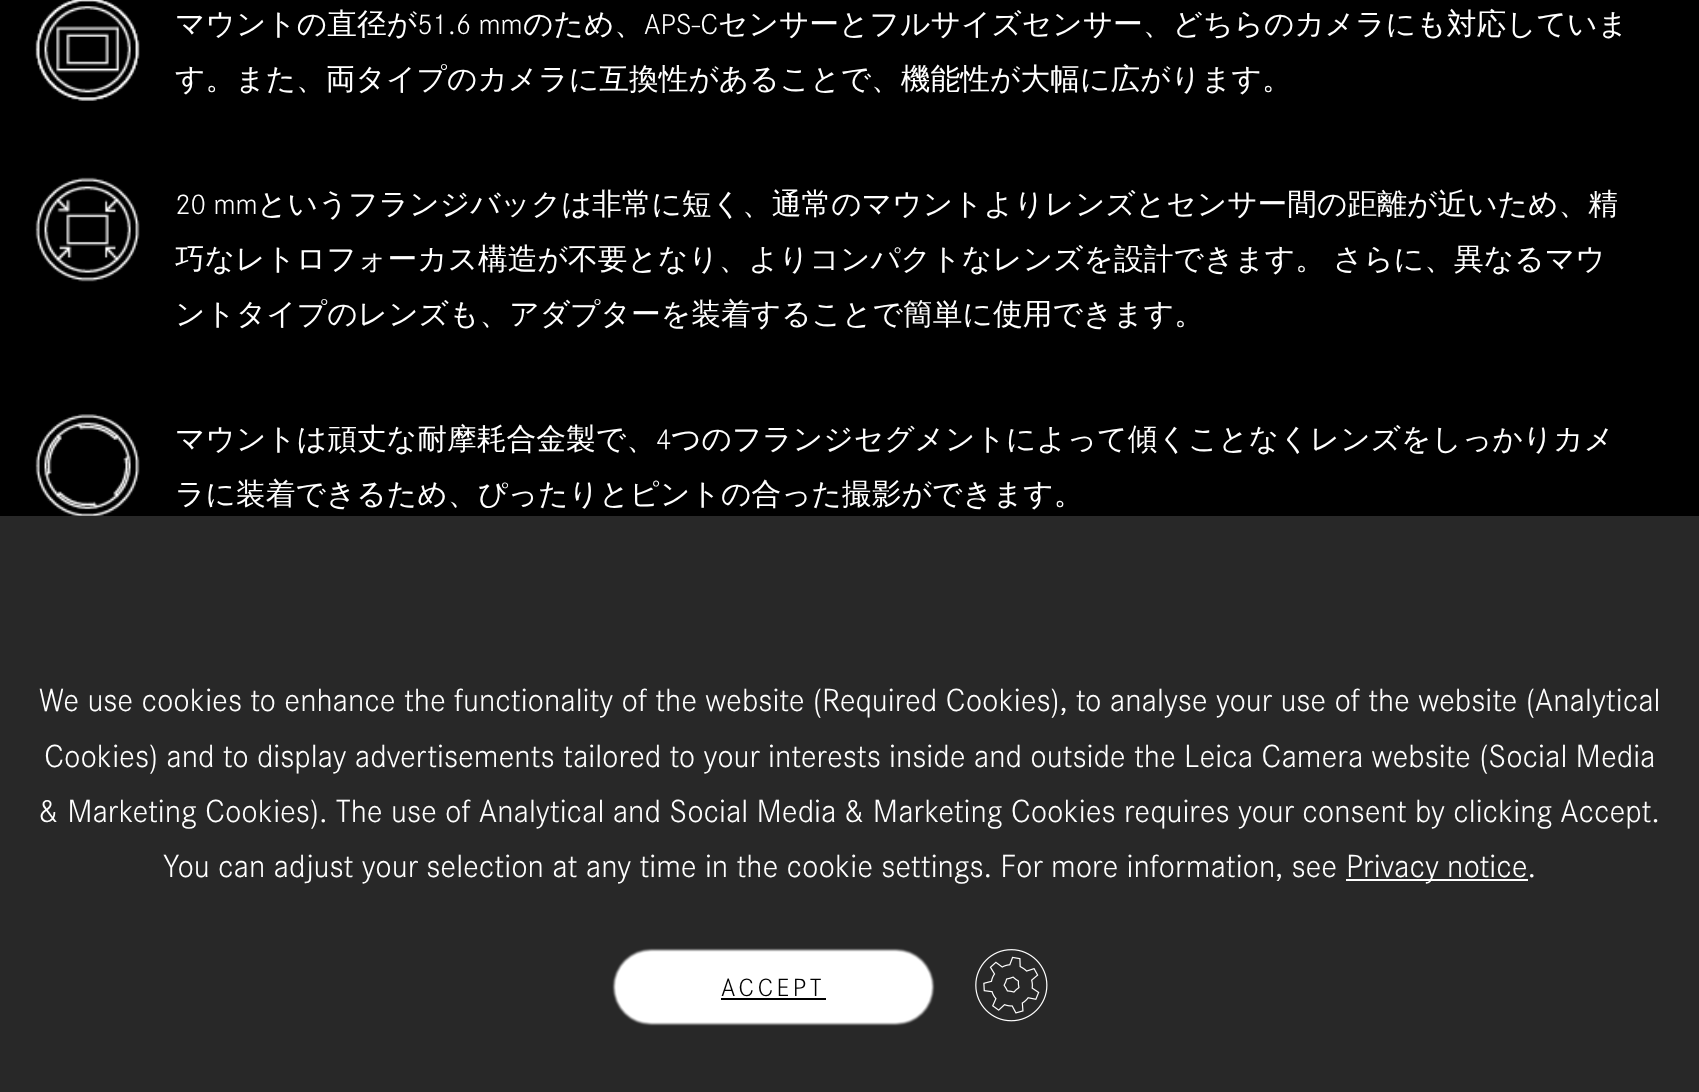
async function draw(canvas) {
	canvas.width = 1699;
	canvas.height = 1092;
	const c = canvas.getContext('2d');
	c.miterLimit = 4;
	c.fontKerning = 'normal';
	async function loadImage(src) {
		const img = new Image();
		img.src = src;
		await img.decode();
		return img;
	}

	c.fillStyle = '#000';
	c.fillRect(0, 0, 1699, 1092);
	c.drawImage(await loadImage('img1.png'), 35, 0, 105, 101);
	c.font = '500 29.75px WenQuanYi Zen Hei';
	c.fillStyle = '#fff';
	c.fillText('マウントの直径が', 175, 34);
	c.font = '300 29.75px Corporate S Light';
	c.fillText('51.6 mm', 417, 34);
	c.font = '500 29.75px WenQuanYi Zen Hei';
	c.fillText('のため、', 523, 34);
	c.font = '300 29.75px Corporate S Light';
	c.fillText('APS-C', 644, 34);
	c.font = '500 29.75px WenQuanYi Zen Hei';
	c.fillText('センサーとフルサイズセンサー、どちらのカメラにも対応していま', 718, 34);
	c.fillText('す。また、両タイプのカメラに互換性があることで、機能性が大幅に広がります。', 175, 89);
	c.drawImage(await loadImage('img2.png'), 35, 177, 105, 105);
	c.font = '300 29.75px Corporate S Light';
	c.fillText('20 mm', 175, 214);
	c.font = '500 29.75px WenQuanYi Zen Hei';
	c.fillText('というフランジバックは非常に短く、通常のマウントよりレンズとセンサー間の距離が近いため、精', 257, 214);
	c.wordSpacing = '-1px';
	c.fillText('巧なレトロフォーカス構造が不要となり、よりコンパクトなレンズを設計できます。 さらに、異なるマウ', 175, 269);
	c.wordSpacing = '0px';
	c.fillText('ントタイプのレンズも、アダプターを装着することで簡単に使用できます。', 175, 324);
	c.drawImage(await loadImage('img3.png'), 35, 414, 105, 102);
	c.fillText('マウントは頑丈な耐摩耗合金製で、', 175, 449);
	c.font = '300 29.75px Corporate S Light';
	c.fillText('4', 656, 449);
	c.font = '500 29.75px WenQuanYi Zen Hei';
	c.fillText('つのフランジセグメントによって傾くことなくレンズをしっかりカメ', 671, 449);
	c.fillText('ラに装着できるため、ぴったりとピントの合った撮影ができます。', 175, 504);
	c.fillStyle = '#282828';
	c.fillRect(0, 516, 1699, 576);
	c.font = '300 33.25px Corporate S Light';
	c.fillStyle = '#fff';
	for (const [text, x, y] of [
		['We use cookies to enhance the functionality of the website (Required Cookies), to analyse your use of the website (Analytical', 39, 711],
		['Cookies) and to display advertisements tailored to your interests inside and outside the Leica Camera website (Social Media', 44, 767],
		['& Marketing Cookies). The use of Analytical and Social Media & Marketing Cookies requires your consent by clicking Accept.', 39, 822],
		['You can adjust your selection at any time in the cookie settings. For more information, see', 163, 877],
	]) {
		c.fillText(text, x, y);
	}
	c.fillRect(1346, 879, 182, 2);
	c.fillText('Privacy notice.', 1346, 877);
	c.filter = 'blur(1px)';
	c.beginPath();
	c.roundRect(614, 950, 319, 74, 37);
	c.fill();
	c.filter = 'none';
	c.beginPath();
	c.roundRect(616, 952, 315, 70, 35);
	c.fill();
	c.letterSpacing = '3.5px';
	c.font = '300 26px Corporate S Light';
	c.fillStyle = '#000';
	c.fillText('ACCEPT', 721, 996);
	c.fillRect(721, 998, 105, 2);
	c.drawImage(await loadImage('img4.png'), 975, 949, 73, 73);
}

draw(document.querySelector('canvas'));
